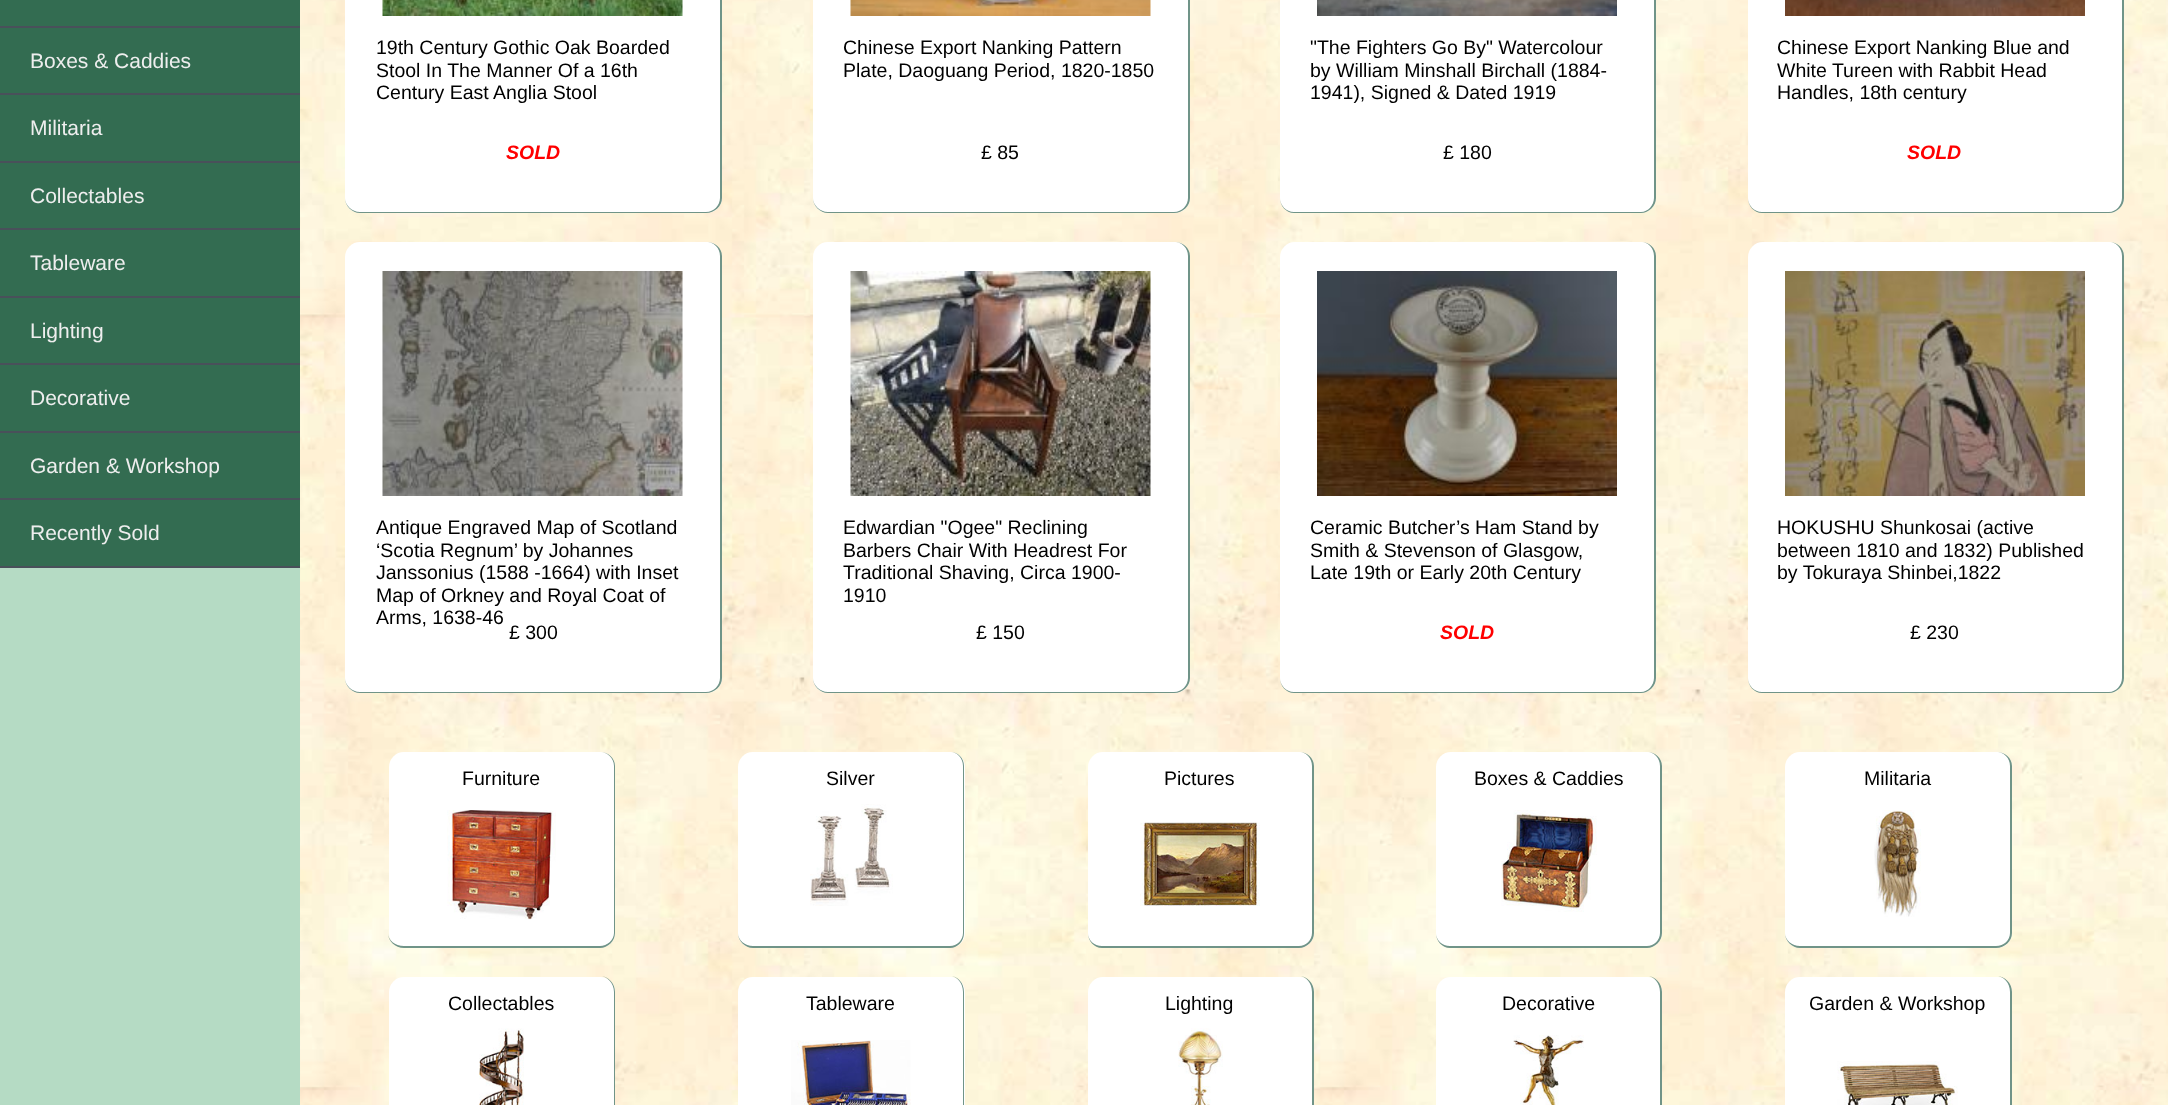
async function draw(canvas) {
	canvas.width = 2168;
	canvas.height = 1105;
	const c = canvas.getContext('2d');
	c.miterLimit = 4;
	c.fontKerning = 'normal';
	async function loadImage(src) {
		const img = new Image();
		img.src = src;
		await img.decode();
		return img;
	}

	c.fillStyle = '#b5dbc4';
	c.fillRect(0, 0, 2168, 1105);
	for (const [x, y, w, h, color] of [
		[0, 0, 300, 26, '#336c51'],
		[0, 28, 300, 65, '#336c51'],
		[0, 26, 300, 2, '#49505a'],
	]) {
		c.fillStyle = color;
		c.fillRect(x, y, w, h);
	}
	c.font = '21px Liberation Sans';
	c.fillStyle = '#eee';
	c.fillText('Boxes & Caddies', 30, 68);
	c.fillStyle = '#336c51';
	c.fillRect(0, 95, 300, 66);
	c.fillStyle = '#49505a';
	c.fillRect(0, 93, 300, 2);
	c.fillStyle = '#eee';
	c.fillText('Militaria', 30, 135);
	c.fillStyle = '#336c51';
	c.fillRect(0, 163, 300, 65);
	c.fillStyle = '#49505a';
	c.fillRect(0, 161, 300, 2);
	c.fillStyle = '#eee';
	c.fillText('Collectables', 30, 203);
	c.fillStyle = '#336c51';
	c.fillRect(0, 230, 300, 66);
	c.fillStyle = '#49505a';
	c.fillRect(0, 228, 300, 2);
	c.fillStyle = '#eee';
	c.fillText('Tableware', 30, 270);
	c.fillStyle = '#336c51';
	c.fillRect(0, 298, 300, 65);
	c.fillStyle = '#49505a';
	c.fillRect(0, 296, 300, 2);
	c.fillStyle = '#eee';
	c.fillText('Lighting', 30, 338);
	c.fillStyle = '#336c51';
	c.fillRect(0, 365, 300, 66);
	c.fillStyle = '#49505a';
	c.fillRect(0, 363, 300, 2);
	c.fillStyle = '#eee';
	c.fillText('Decorative', 30, 405);
	c.fillStyle = '#336c51';
	c.fillRect(0, 433, 300, 65);
	c.fillStyle = '#49505a';
	c.fillRect(0, 431, 300, 2);
	c.fillStyle = '#eee';
	c.fillText('Garden & Workshop', 30, 473);
	for (const [x, y, w, h, color] of [
		[0, 500, 300, 66, '#336c51'],
		[0, 498, 300, 2, '#49505a'],
		[0, 566, 300, 2, '#49505a'],
	]) {
		c.fillStyle = color;
		c.fillRect(x, y, w, h);
	}
	c.fillStyle = '#eee';
	c.fillText('Recently Sold', 30, 540);
	c.drawImage(await loadImage('img1.png'), 300, 0, 1868, 1105);
	c.fillStyle = '#fff';
	c.beginPath();
	c.roundRect(345, -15, 377, 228, 15);
	c.fill();
	c.fillStyle = '#709488';
	c.beginPath();
	c.moveTo(360, -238);
	c.lineTo(706, -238);
	c.bezierCurveTo(715, -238, 722, -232, 722, -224);
	c.lineTo(722, 198);
	c.bezierCurveTo(722, 206, 715, 213, 706, 213);
	c.lineTo(360, 213);
	c.bezierCurveTo(352, 213, 345, 206, 345, 198);
	c.lineTo(345, -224);
	c.bezierCurveTo(345, -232, 352, -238, 360, -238);
	c.closePath();
	c.moveTo(360, -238);
	c.lineTo(706, -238);
	c.bezierCurveTo(714, -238, 720, -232, 720, -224);
	c.lineTo(720, 198);
	c.bezierCurveTo(720, 205, 714, 212, 706, 212);
	c.lineTo(360, 212);
	c.bezierCurveTo(352, 212, 345, 205, 345, 198);
	c.lineTo(345, -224);
	c.bezierCurveTo(345, -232, 352, -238, 360, -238);
	c.closePath();
	c.fill('evenodd');
	c.drawImage(await loadImage('img2.png'), 382, 0, 301, 16);
	c.font = '19.5px Liberation Sans';
	c.fillStyle = '#000';
	for (const [text, x, y] of [
		['19th Century Gothic Oak Boarded', 376, 54],
		['Stool In The Manner Of a 16th', 376, 77],
		['Century East Anglia Stool', 376, 99],
	]) {
		c.fillText(text, x, y);
	}
	c.font = 'italic bold 19.5px Liberation Sans';
	c.fillStyle = '#f00';
	c.fillText('SOLD', 506, 159);
	c.fillStyle = '#fff';
	c.beginPath();
	c.roundRect(813, -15, 377, 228, 15);
	c.fill();
	c.fillStyle = '#709488';
	c.beginPath();
	c.moveTo(828, -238);
	c.lineTo(1174, -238);
	c.bezierCurveTo(1183, -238, 1190, -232, 1190, -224);
	c.lineTo(1190, 198);
	c.bezierCurveTo(1190, 206, 1183, 213, 1174, 213);
	c.lineTo(828, 213);
	c.bezierCurveTo(820, 213, 813, 206, 813, 198);
	c.lineTo(813, -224);
	c.bezierCurveTo(813, -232, 820, -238, 828, -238);
	c.closePath();
	c.moveTo(828, -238);
	c.lineTo(1174, -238);
	c.bezierCurveTo(1182, -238, 1188, -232, 1188, -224);
	c.lineTo(1188, 198);
	c.bezierCurveTo(1188, 205, 1182, 212, 1174, 212);
	c.lineTo(828, 212);
	c.bezierCurveTo(820, 212, 813, 205, 813, 198);
	c.lineTo(813, -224);
	c.bezierCurveTo(813, -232, 820, -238, 828, -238);
	c.closePath();
	c.fill('evenodd');
	c.drawImage(await loadImage('img3.png'), 850, 0, 301, 16);
	c.font = '19.5px Liberation Sans';
	c.fillStyle = '#000';
	for (const [text, x, y] of [
		['Chinese Export Nanking Pattern', 843, 54],
		['Plate, Daoguang Period, 1820-1850', 843, 77],
		['£ 85', 981, 159],
	]) {
		c.fillText(text, x, y);
	}
	c.fillStyle = '#fff';
	c.beginPath();
	c.roundRect(1280, -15, 376, 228, 15);
	c.fill();
	c.fillStyle = '#709488';
	c.beginPath();
	c.moveTo(1294, -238);
	c.lineTo(1641, -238);
	c.bezierCurveTo(1649, -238, 1656, -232, 1656, -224);
	c.lineTo(1656, 198);
	c.bezierCurveTo(1656, 206, 1649, 213, 1641, 213);
	c.lineTo(1294, 213);
	c.bezierCurveTo(1286, 213, 1280, 206, 1280, 198);
	c.lineTo(1280, -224);
	c.bezierCurveTo(1280, -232, 1286, -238, 1294, -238);
	c.closePath();
	c.moveTo(1294, -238);
	c.lineTo(1641, -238);
	c.bezierCurveTo(1648, -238, 1654, -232, 1654, -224);
	c.lineTo(1654, 198);
	c.bezierCurveTo(1654, 205, 1648, 212, 1641, 212);
	c.lineTo(1294, 212);
	c.bezierCurveTo(1286, 212, 1280, 205, 1280, 198);
	c.lineTo(1280, -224);
	c.bezierCurveTo(1280, -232, 1286, -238, 1294, -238);
	c.closePath();
	c.fill('evenodd');
	c.drawImage(await loadImage('img4.png'), 1317, 0, 300, 16);
	c.fillStyle = '#000';
	for (const [text, x, y] of [
		['"The Fighters Go By" Watercolour', 1310, 54],
		['by William Minshall Birchall (1884-', 1310, 77],
		['1941), Signed & Dated 1919', 1310, 99],
		['£ 180', 1443, 159],
	]) {
		c.fillText(text, x, y);
	}
	c.fillStyle = '#fff';
	c.beginPath();
	c.roundRect(1748, -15, 376, 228, 15);
	c.fill();
	c.fillStyle = '#709488';
	c.beginPath();
	c.moveTo(1762, -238);
	c.lineTo(2109, -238);
	c.bezierCurveTo(2117, -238, 2124, -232, 2124, -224);
	c.lineTo(2124, 198);
	c.bezierCurveTo(2124, 206, 2117, 213, 2109, 213);
	c.lineTo(1762, 213);
	c.bezierCurveTo(1754, 213, 1748, 206, 1748, 198);
	c.lineTo(1748, -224);
	c.bezierCurveTo(1748, -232, 1754, -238, 1762, -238);
	c.closePath();
	c.moveTo(1762, -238);
	c.lineTo(2109, -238);
	c.bezierCurveTo(2116, -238, 2122, -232, 2122, -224);
	c.lineTo(2122, 198);
	c.bezierCurveTo(2122, 205, 2116, 212, 2109, 212);
	c.lineTo(1762, 212);
	c.bezierCurveTo(1754, 212, 1748, 205, 1748, 198);
	c.lineTo(1748, -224);
	c.bezierCurveTo(1748, -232, 1754, -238, 1762, -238);
	c.closePath();
	c.fill('evenodd');
	c.drawImage(await loadImage('img5.png'), 1785, 0, 300, 16);
	c.fillStyle = '#000';
	for (const [text, x, y] of [
		['Chinese Export Nanking Blue and', 1777, 54],
		['White Tureen with Rabbit Head', 1777, 77],
		['Handles, 18th century', 1777, 99],
	]) {
		c.fillText(text, x, y);
	}
	c.font = 'italic bold 19.5px Liberation Sans';
	c.fillStyle = '#f00';
	c.fillText('SOLD', 1907, 159);
	c.fillStyle = '#fff';
	c.beginPath();
	c.roundRect(345, 242, 377, 451, 15);
	c.fill();
	c.fillStyle = '#709488';
	c.beginPath();
	c.moveTo(360, 242);
	c.lineTo(706, 242);
	c.bezierCurveTo(715, 242, 722, 248, 722, 256);
	c.lineTo(722, 678);
	c.bezierCurveTo(722, 686, 715, 693, 706, 693);
	c.lineTo(360, 693);
	c.bezierCurveTo(352, 693, 345, 686, 345, 678);
	c.lineTo(345, 256);
	c.bezierCurveTo(345, 248, 352, 242, 360, 242);
	c.closePath();
	c.moveTo(360, 242);
	c.lineTo(706, 242);
	c.bezierCurveTo(714, 242, 720, 248, 720, 256);
	c.lineTo(720, 678);
	c.bezierCurveTo(720, 685, 714, 692, 706, 692);
	c.lineTo(360, 692);
	c.bezierCurveTo(352, 692, 345, 685, 345, 678);
	c.lineTo(345, 256);
	c.bezierCurveTo(345, 248, 352, 242, 360, 242);
	c.closePath();
	c.fill('evenodd');
	c.drawImage(await loadImage('img6.png'), 382, 271, 301, 225);
	c.font = '19.5px Liberation Sans';
	c.fillStyle = '#000';
	for (const [text, x, y] of [
		['Antique Engraved Map of Scotland', 376, 534],
		['‘Scotia Regnum’ by Johannes', 376, 557],
		['Janssonius (1588 -1664) with Inset', 376, 579],
		['Map of Orkney and Royal Coat of', 376, 602],
		['Arms, 1638-46', 376, 624],
		['£ 300', 509, 639],
	]) {
		c.fillText(text, x, y);
	}
	c.fillStyle = '#fff';
	c.beginPath();
	c.roundRect(813, 242, 377, 451, 15);
	c.fill();
	c.fillStyle = '#709488';
	c.beginPath();
	c.moveTo(828, 242);
	c.lineTo(1174, 242);
	c.bezierCurveTo(1183, 242, 1190, 248, 1190, 256);
	c.lineTo(1190, 678);
	c.bezierCurveTo(1190, 686, 1183, 693, 1174, 693);
	c.lineTo(828, 693);
	c.bezierCurveTo(820, 693, 813, 686, 813, 678);
	c.lineTo(813, 256);
	c.bezierCurveTo(813, 248, 820, 242, 828, 242);
	c.closePath();
	c.moveTo(828, 242);
	c.lineTo(1174, 242);
	c.bezierCurveTo(1182, 242, 1188, 248, 1188, 256);
	c.lineTo(1188, 678);
	c.bezierCurveTo(1188, 685, 1182, 692, 1174, 692);
	c.lineTo(828, 692);
	c.bezierCurveTo(820, 692, 813, 685, 813, 678);
	c.lineTo(813, 256);
	c.bezierCurveTo(813, 248, 820, 242, 828, 242);
	c.closePath();
	c.fill('evenodd');
	c.drawImage(await loadImage('img7.png'), 850, 271, 301, 225);
	c.fillStyle = '#000';
	for (const [text, x, y] of [
		['Edwardian "Ogee" Reclining', 843, 534],
		['Barbers Chair With Headrest For', 843, 557],
		['Traditional Shaving, Circa 1900-', 843, 579],
		['1910', 843, 602],
		['£ 150', 976, 639],
	]) {
		c.fillText(text, x, y);
	}
	c.fillStyle = '#fff';
	c.beginPath();
	c.roundRect(1280, 242, 376, 451, 15);
	c.fill();
	c.fillStyle = '#709488';
	c.beginPath();
	c.moveTo(1294, 242);
	c.lineTo(1641, 242);
	c.bezierCurveTo(1649, 242, 1656, 248, 1656, 256);
	c.lineTo(1656, 678);
	c.bezierCurveTo(1656, 686, 1649, 693, 1641, 693);
	c.lineTo(1294, 693);
	c.bezierCurveTo(1286, 693, 1280, 686, 1280, 678);
	c.lineTo(1280, 256);
	c.bezierCurveTo(1280, 248, 1286, 242, 1294, 242);
	c.closePath();
	c.moveTo(1294, 242);
	c.lineTo(1641, 242);
	c.bezierCurveTo(1648, 242, 1654, 248, 1654, 256);
	c.lineTo(1654, 678);
	c.bezierCurveTo(1654, 685, 1648, 692, 1641, 692);
	c.lineTo(1294, 692);
	c.bezierCurveTo(1286, 692, 1280, 685, 1280, 678);
	c.lineTo(1280, 256);
	c.bezierCurveTo(1280, 248, 1286, 242, 1294, 242);
	c.closePath();
	c.fill('evenodd');
	c.drawImage(await loadImage('img8.png'), 1317, 271, 300, 225);
	c.fillStyle = '#000';
	for (const [text, x, y] of [
		['Ceramic Butcher’s Ham Stand by', 1310, 534],
		['Smith & Stevenson of Glasgow,', 1310, 557],
		['Late 19th or Early 20th Century', 1310, 579],
	]) {
		c.fillText(text, x, y);
	}
	c.font = 'italic bold 19.5px Liberation Sans';
	c.fillStyle = '#f00';
	c.fillText('SOLD', 1440, 639);
	c.fillStyle = '#fff';
	c.beginPath();
	c.roundRect(1748, 242, 376, 451, 15);
	c.fill();
	c.fillStyle = '#709488';
	c.beginPath();
	c.moveTo(1762, 242);
	c.lineTo(2109, 242);
	c.bezierCurveTo(2117, 242, 2124, 248, 2124, 256);
	c.lineTo(2124, 678);
	c.bezierCurveTo(2124, 686, 2117, 693, 2109, 693);
	c.lineTo(1762, 693);
	c.bezierCurveTo(1754, 693, 1748, 686, 1748, 678);
	c.lineTo(1748, 256);
	c.bezierCurveTo(1748, 248, 1754, 242, 1762, 242);
	c.closePath();
	c.moveTo(1762, 242);
	c.lineTo(2109, 242);
	c.bezierCurveTo(2116, 242, 2122, 248, 2122, 256);
	c.lineTo(2122, 678);
	c.bezierCurveTo(2122, 685, 2116, 692, 2109, 692);
	c.lineTo(1762, 692);
	c.bezierCurveTo(1754, 692, 1748, 685, 1748, 678);
	c.lineTo(1748, 256);
	c.bezierCurveTo(1748, 248, 1754, 242, 1762, 242);
	c.closePath();
	c.fill('evenodd');
	c.drawImage(await loadImage('img9.png'), 1785, 271, 300, 225);
	c.font = '19.5px Liberation Sans';
	c.fillStyle = '#000';
	for (const [text, x, y] of [
		['HOKUSHU Shunkosai (active', 1777, 534],
		['between 1810 and 1832) Published', 1777, 557],
		['by Tokuraya Shinbei,1822', 1777, 579],
		['£ 230', 1910, 639],
	]) {
		c.fillText(text, x, y);
	}
	c.fillStyle = '#fff';
	c.beginPath();
	c.roundRect(389, 752, 226, 196, 15);
	c.fill();
	c.fillStyle = '#709488';
	c.beginPath();
	c.moveTo(404, 752);
	c.lineTo(600, 752);
	c.bezierCurveTo(608, 752, 615, 758, 615, 766);
	c.lineTo(615, 933);
	c.bezierCurveTo(615, 941, 608, 948, 600, 948);
	c.lineTo(404, 948);
	c.bezierCurveTo(395, 948, 388, 941, 388, 933);
	c.lineTo(388, 766);
	c.bezierCurveTo(388, 758, 395, 752, 404, 752);
	c.closePath();
	c.moveTo(404, 752);
	c.lineTo(600, 752);
	c.bezierCurveTo(607, 752, 614, 758, 614, 766);
	c.lineTo(614, 933);
	c.bezierCurveTo(614, 940, 607, 946, 600, 946);
	c.lineTo(404, 946);
	c.bezierCurveTo(395, 946, 388, 940, 388, 933);
	c.lineTo(388, 766);
	c.bezierCurveTo(388, 758, 395, 752, 404, 752);
	c.closePath();
	c.fill('evenodd');
	c.fillStyle = '#000';
	c.fillText('Furniture', 462, 785);
	c.drawImage(await loadImage('img10.png'), 447, 810, 109, 110);
	c.fillStyle = '#fff';
	c.beginPath();
	c.roundRect(738, 752, 227, 196, 15);
	c.fill();
	c.fillStyle = '#709488';
	c.beginPath();
	c.moveTo(753, 752);
	c.lineTo(950, 752);
	c.bezierCurveTo(958, 752, 964, 758, 964, 766);
	c.lineTo(964, 933);
	c.bezierCurveTo(964, 941, 958, 948, 950, 948);
	c.lineTo(753, 948);
	c.bezierCurveTo(745, 948, 738, 941, 738, 933);
	c.lineTo(738, 766);
	c.bezierCurveTo(738, 758, 745, 752, 753, 752);
	c.closePath();
	c.moveTo(753, 752);
	c.lineTo(950, 752);
	c.bezierCurveTo(957, 752, 963, 758, 963, 766);
	c.lineTo(963, 933);
	c.bezierCurveTo(963, 940, 957, 946, 950, 946);
	c.lineTo(753, 946);
	c.bezierCurveTo(745, 946, 738, 940, 738, 933);
	c.lineTo(738, 766);
	c.bezierCurveTo(738, 758, 745, 752, 753, 752);
	c.closePath();
	c.fill('evenodd');
	c.fillStyle = '#000';
	c.fillText('Silver', 826, 785);
	c.drawImage(await loadImage('img11.png'), 810, 804, 83, 102);
	c.fillStyle = '#fff';
	c.beginPath();
	c.roundRect(1088, 752, 226, 196, 15);
	c.fill();
	c.fillStyle = '#709488';
	c.beginPath();
	c.moveTo(1102, 752);
	c.lineTo(1299, 752);
	c.bezierCurveTo(1307, 752, 1314, 758, 1314, 766);
	c.lineTo(1314, 933);
	c.bezierCurveTo(1314, 941, 1307, 948, 1299, 948);
	c.lineTo(1102, 948);
	c.bezierCurveTo(1094, 948, 1088, 941, 1088, 933);
	c.lineTo(1088, 766);
	c.bezierCurveTo(1088, 758, 1094, 752, 1102, 752);
	c.closePath();
	c.moveTo(1102, 752);
	c.lineTo(1299, 752);
	c.bezierCurveTo(1306, 752, 1312, 758, 1312, 766);
	c.lineTo(1312, 933);
	c.bezierCurveTo(1312, 940, 1306, 946, 1299, 946);
	c.lineTo(1102, 946);
	c.bezierCurveTo(1094, 946, 1088, 940, 1088, 933);
	c.lineTo(1088, 766);
	c.bezierCurveTo(1088, 758, 1094, 752, 1102, 752);
	c.closePath();
	c.fill('evenodd');
	c.fillStyle = '#000';
	c.fillText('Pictures', 1164, 785);
	c.drawImage(await loadImage('img12.png'), 1140, 822, 120, 84);
	c.fillStyle = '#fff';
	c.beginPath();
	c.roundRect(1436, 752, 226, 196, 15);
	c.fill();
	c.fillStyle = '#709488';
	c.beginPath();
	c.moveTo(1450, 752);
	c.lineTo(1647, 752);
	c.bezierCurveTo(1655, 752, 1662, 758, 1662, 766);
	c.lineTo(1662, 933);
	c.bezierCurveTo(1662, 941, 1655, 948, 1647, 948);
	c.lineTo(1450, 948);
	c.bezierCurveTo(1442, 948, 1436, 941, 1436, 933);
	c.lineTo(1436, 766);
	c.bezierCurveTo(1436, 758, 1442, 752, 1450, 752);
	c.closePath();
	c.moveTo(1450, 752);
	c.lineTo(1647, 752);
	c.bezierCurveTo(1654, 752, 1660, 758, 1660, 766);
	c.lineTo(1660, 933);
	c.bezierCurveTo(1660, 940, 1654, 946, 1647, 946);
	c.lineTo(1450, 946);
	c.bezierCurveTo(1442, 946, 1436, 940, 1436, 933);
	c.lineTo(1436, 766);
	c.bezierCurveTo(1436, 758, 1442, 752, 1450, 752);
	c.closePath();
	c.fill('evenodd');
	c.fillStyle = '#000';
	c.fillText('Boxes & Caddies', 1474, 785);
	c.drawImage(await loadImage('img13.png'), 1501, 810, 96, 102);
	c.fillStyle = '#fff';
	c.beginPath();
	c.roundRect(1785, 752, 227, 196, 15);
	c.fill();
	c.fillStyle = '#709488';
	c.beginPath();
	c.moveTo(1800, 752);
	c.lineTo(1996, 752);
	c.bezierCurveTo(2005, 752, 2012, 758, 2012, 766);
	c.lineTo(2012, 933);
	c.bezierCurveTo(2012, 941, 2005, 948, 1996, 948);
	c.lineTo(1800, 948);
	c.bezierCurveTo(1792, 948, 1785, 941, 1785, 933);
	c.lineTo(1785, 766);
	c.bezierCurveTo(1785, 758, 1792, 752, 1800, 752);
	c.closePath();
	c.moveTo(1800, 752);
	c.lineTo(1996, 752);
	c.bezierCurveTo(2004, 752, 2010, 758, 2010, 766);
	c.lineTo(2010, 933);
	c.bezierCurveTo(2010, 940, 2004, 946, 1996, 946);
	c.lineTo(1800, 946);
	c.bezierCurveTo(1792, 946, 1785, 940, 1785, 933);
	c.lineTo(1785, 766);
	c.bezierCurveTo(1785, 758, 1792, 752, 1800, 752);
	c.closePath();
	c.fill('evenodd');
	c.fillStyle = '#000';
	c.fillText('Militaria', 1864, 785);
	c.drawImage(await loadImage('img14.png'), 1874, 810, 47, 107);
	c.fillStyle = '#fff';
	c.beginPath();
	c.roundRect(389, 977, 226, 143, 15);
	c.fill();
	c.fillStyle = '#709488';
	c.beginPath();
	c.moveTo(404, 976);
	c.lineTo(600, 976);
	c.bezierCurveTo(608, 976, 615, 983, 615, 992);
	c.lineTo(615, 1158);
	c.bezierCurveTo(615, 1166, 608, 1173, 600, 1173);
	c.lineTo(404, 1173);
	c.bezierCurveTo(395, 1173, 388, 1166, 388, 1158);
	c.lineTo(388, 992);
	c.bezierCurveTo(388, 983, 395, 976, 404, 976);
	c.closePath();
	c.moveTo(404, 976);
	c.lineTo(600, 976);
	c.bezierCurveTo(607, 976, 614, 983, 614, 992);
	c.lineTo(614, 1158);
	c.bezierCurveTo(614, 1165, 607, 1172, 600, 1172);
	c.lineTo(404, 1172);
	c.bezierCurveTo(395, 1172, 388, 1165, 388, 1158);
	c.lineTo(388, 992);
	c.bezierCurveTo(388, 983, 395, 976, 404, 976);
	c.closePath();
	c.fill('evenodd');
	c.fillStyle = '#000';
	c.fillText('Collectables', 448, 1010);
	c.drawImage(await loadImage('img15.png'), 479, 1028, 45, 77);
	c.fillStyle = '#fff';
	c.beginPath();
	c.roundRect(738, 977, 227, 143, 15);
	c.fill();
	c.fillStyle = '#709488';
	c.beginPath();
	c.moveTo(753, 976);
	c.lineTo(950, 976);
	c.bezierCurveTo(958, 976, 964, 983, 964, 992);
	c.lineTo(964, 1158);
	c.bezierCurveTo(964, 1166, 958, 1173, 950, 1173);
	c.lineTo(753, 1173);
	c.bezierCurveTo(745, 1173, 738, 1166, 738, 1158);
	c.lineTo(738, 992);
	c.bezierCurveTo(738, 983, 745, 976, 753, 976);
	c.closePath();
	c.moveTo(753, 976);
	c.lineTo(950, 976);
	c.bezierCurveTo(957, 976, 963, 983, 963, 992);
	c.lineTo(963, 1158);
	c.bezierCurveTo(963, 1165, 957, 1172, 950, 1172);
	c.lineTo(753, 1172);
	c.bezierCurveTo(745, 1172, 738, 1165, 738, 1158);
	c.lineTo(738, 992);
	c.bezierCurveTo(738, 983, 745, 976, 753, 976);
	c.closePath();
	c.fill('evenodd');
	c.fillStyle = '#000';
	c.fillText('Tableware', 806, 1010);
	c.drawImage(await loadImage('img16.png'), 791, 1040, 120, 65);
	c.fillStyle = '#fff';
	c.beginPath();
	c.roundRect(1088, 977, 226, 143, 15);
	c.fill();
	c.fillStyle = '#709488';
	c.beginPath();
	c.moveTo(1102, 976);
	c.lineTo(1299, 976);
	c.bezierCurveTo(1307, 976, 1314, 983, 1314, 992);
	c.lineTo(1314, 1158);
	c.bezierCurveTo(1314, 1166, 1307, 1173, 1299, 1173);
	c.lineTo(1102, 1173);
	c.bezierCurveTo(1094, 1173, 1088, 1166, 1088, 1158);
	c.lineTo(1088, 992);
	c.bezierCurveTo(1088, 983, 1094, 976, 1102, 976);
	c.closePath();
	c.moveTo(1102, 976);
	c.lineTo(1299, 976);
	c.bezierCurveTo(1306, 976, 1312, 983, 1312, 992);
	c.lineTo(1312, 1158);
	c.bezierCurveTo(1312, 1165, 1306, 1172, 1299, 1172);
	c.lineTo(1102, 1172);
	c.bezierCurveTo(1094, 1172, 1088, 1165, 1088, 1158);
	c.lineTo(1088, 992);
	c.bezierCurveTo(1088, 983, 1094, 976, 1102, 976);
	c.closePath();
	c.fill('evenodd');
	c.fillStyle = '#000';
	c.fillText('Lighting', 1165, 1010);
	c.drawImage(await loadImage('img17.png'), 1178, 1028, 45, 77);
	c.fillStyle = '#fff';
	c.beginPath();
	c.roundRect(1436, 977, 226, 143, 15);
	c.fill();
	c.fillStyle = '#709488';
	c.beginPath();
	c.moveTo(1450, 976);
	c.lineTo(1647, 976);
	c.bezierCurveTo(1655, 976, 1662, 983, 1662, 992);
	c.lineTo(1662, 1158);
	c.bezierCurveTo(1662, 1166, 1655, 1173, 1647, 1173);
	c.lineTo(1450, 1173);
	c.bezierCurveTo(1442, 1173, 1436, 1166, 1436, 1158);
	c.lineTo(1436, 992);
	c.bezierCurveTo(1436, 983, 1442, 976, 1450, 976);
	c.closePath();
	c.moveTo(1450, 976);
	c.lineTo(1647, 976);
	c.bezierCurveTo(1654, 976, 1660, 983, 1660, 992);
	c.lineTo(1660, 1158);
	c.bezierCurveTo(1660, 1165, 1654, 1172, 1647, 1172);
	c.lineTo(1450, 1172);
	c.bezierCurveTo(1442, 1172, 1436, 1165, 1436, 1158);
	c.lineTo(1436, 992);
	c.bezierCurveTo(1436, 983, 1442, 976, 1450, 976);
	c.closePath();
	c.fill('evenodd');
	c.fillStyle = '#000';
	c.fillText('Decorative', 1502, 1010);
	c.drawImage(await loadImage('img18.png'), 1513, 1035, 71, 70);
	c.fillStyle = '#fff';
	c.beginPath();
	c.roundRect(1785, 977, 227, 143, 15);
	c.fill();
	c.fillStyle = '#709488';
	c.beginPath();
	c.moveTo(1800, 976);
	c.lineTo(1996, 976);
	c.bezierCurveTo(2005, 976, 2012, 983, 2012, 992);
	c.lineTo(2012, 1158);
	c.bezierCurveTo(2012, 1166, 2005, 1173, 1996, 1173);
	c.lineTo(1800, 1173);
	c.bezierCurveTo(1792, 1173, 1785, 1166, 1785, 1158);
	c.lineTo(1785, 992);
	c.bezierCurveTo(1785, 983, 1792, 976, 1800, 976);
	c.closePath();
	c.moveTo(1800, 976);
	c.lineTo(1996, 976);
	c.bezierCurveTo(2004, 976, 2010, 983, 2010, 992);
	c.lineTo(2010, 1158);
	c.bezierCurveTo(2010, 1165, 2004, 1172, 1996, 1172);
	c.lineTo(1800, 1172);
	c.bezierCurveTo(1792, 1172, 1785, 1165, 1785, 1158);
	c.lineTo(1785, 992);
	c.bezierCurveTo(1785, 983, 1792, 976, 1800, 976);
	c.closePath();
	c.fill('evenodd');
	c.fillStyle = '#000';
	c.fillText('Garden & Workshop', 1809, 1010);
	c.drawImage(await loadImage('img19.png'), 1837, 1061, 121, 44);
}

draw(document.querySelector('canvas'));
